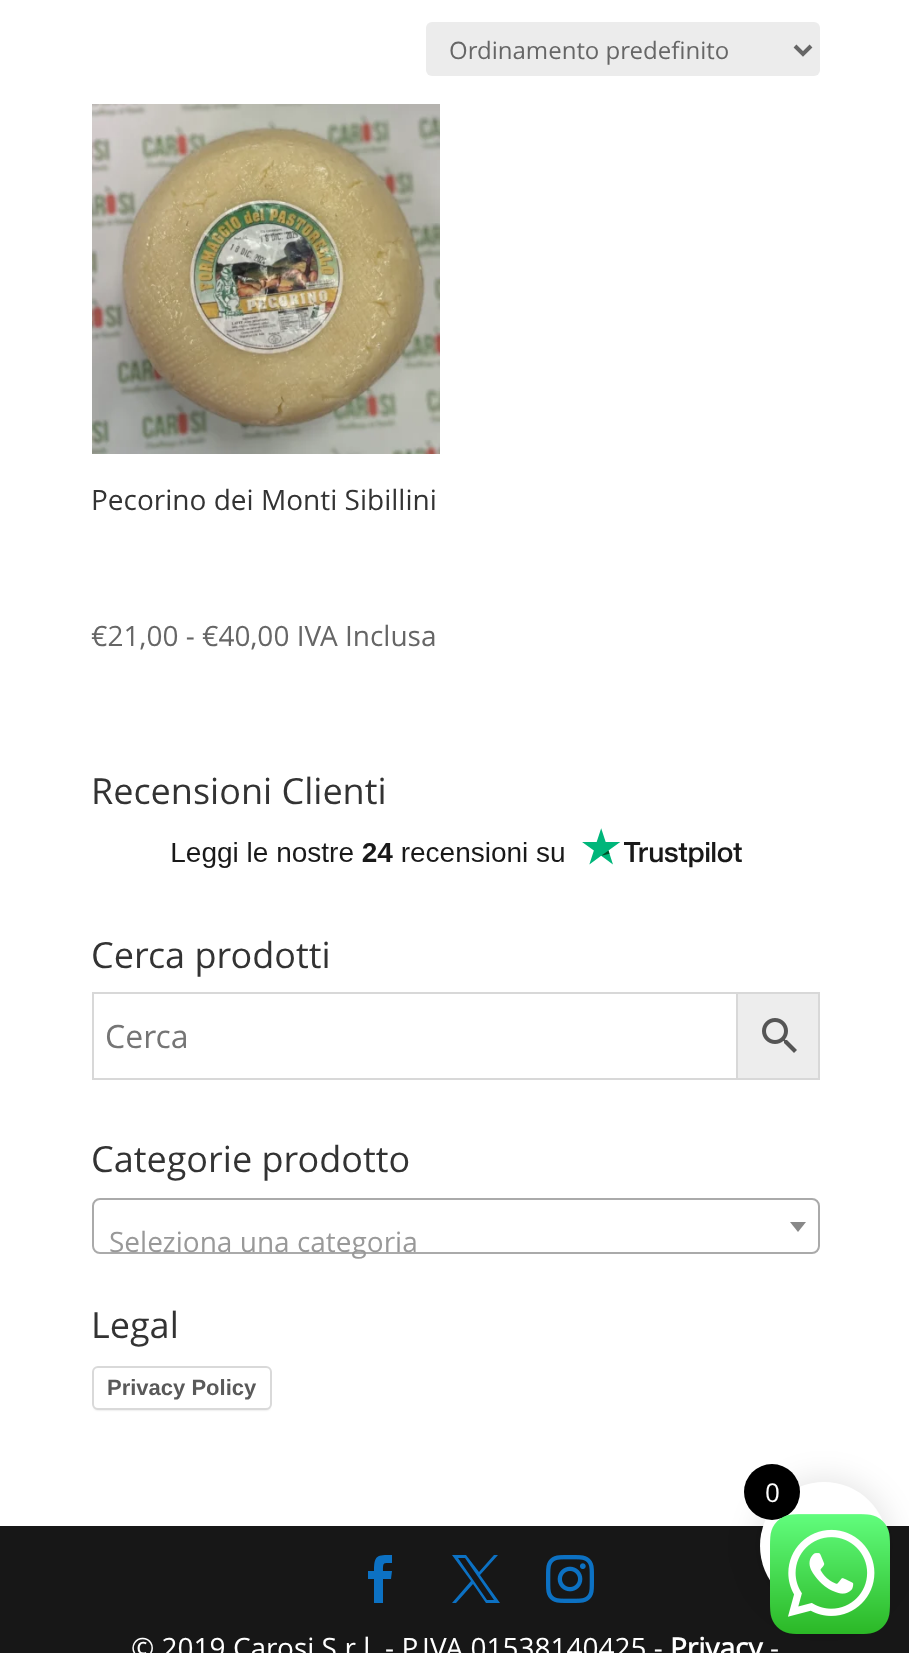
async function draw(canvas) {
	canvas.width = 909;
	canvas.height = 1653;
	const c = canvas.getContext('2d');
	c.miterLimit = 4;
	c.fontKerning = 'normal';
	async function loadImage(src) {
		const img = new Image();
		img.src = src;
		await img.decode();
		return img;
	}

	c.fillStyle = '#fff';
	c.fillRect(0, 0, 909, 1653);
	c.fillStyle = '#ececec';
	c.beginPath();
	c.roundRect(426, 22, 394, 54, 6);
	c.fill();
	c.beginPath();
	c.moveTo(795, 46);
	c.lineTo(803, 54);
	c.lineTo(811, 46);
	c.strokeStyle = '#666';
	c.lineWidth = 4;
	c.stroke();
	c.font = '24px Open Sans';
	c.fillStyle = '#666';
	c.fillText('Ordinamento predefinito', 449, 59);
	c.drawImage(await loadImage('img1.png'), 92, 104, 348, 350);
	c.font = '28px Open Sans';
	c.fillStyle = '#333';
	c.fillText('Pecorino dei Monti Sibillini', 91, 510);
	c.fillStyle = '#666';
	c.fillText('€21,00 - €40,00 IVA Inclusa', 91, 646);
	c.font = '36px Open Sans';
	c.fillStyle = '#333';
	c.fillText('Recensioni Clienti', 91, 804);
	c.drawImage(await loadImage('img2.png'), 172, 828, 570, 40);
	c.fillText('Cerca prodotti', 91, 968);
	c.fillStyle = '#ededed';
	c.beginPath();
	c.rect(737, 993, 82, 86);
	c.fill();
	c.strokeStyle = '#d8d8d8';
	c.lineWidth = 2;
	c.stroke();
	c.strokeRect(93, 993, 644, 86);
	c.font = '32px Open Sans';
	c.fillStyle = '#757575';
	c.fillText('Cerca', 105, 1048);
	c.drawImage(await loadImage('img3.png'), 762, 1018, 35, 35);
	c.font = '36px Open Sans';
	c.fillStyle = '#333';
	c.fillText('Categorie prodotto', 91, 1172);
	c.beginPath();
	c.roundRect(93, 1199, 726, 54, 7);
	c.strokeStyle = '#aaa';
	c.stroke();
	c.fillStyle = '#888';
	c.beginPath();
	c.moveTo(790, 1222);
	c.lineTo(806, 1222);
	c.lineTo(798, 1232);
	c.closePath();
	c.fill();
	c.font = '28px Open Sans';
	c.fillStyle = '#999';
	c.fillText('Seleziona una categoria', 109, 1252);
	c.font = '36px Open Sans';
	c.fillStyle = '#333';
	c.fillText('Legal', 91, 1338);
	c.fillStyle = '#00000026';
	c.filter = 'blur(1px)';
	c.beginPath();
	c.roundRect(94, 1370, 176, 40, 4);
	c.fill();
	c.filter = 'none';
	c.fillStyle = '#fff';
	c.beginPath();
	c.roundRect(93, 1367, 178, 42, 5);
	c.fill();
	c.strokeStyle = '#d9d9d9';
	c.stroke();
	c.font = 'bold 22px Liberation Sans';
	c.fillStyle = '#595959';
	c.fillText('Privacy Policy', 107, 1395);
	c.fillStyle = '#171717';
	c.fillRect(0, 1526, 909, 127);
	c.fillStyle = '#0c71c3';
	c.beginPath();
	c.moveTo(374, 1603);
	c.lineTo(383, 1603);
	c.lineTo(383, 1579);
	c.lineTo(391, 1579);
	c.lineTo(392, 1571);
	c.lineTo(383, 1571);
	c.bezierCurveTo(383, 1562, 383, 1563, 392, 1563);
	c.lineTo(392, 1555);
	c.bezierCurveTo(377, 1555, 374, 1555, 374, 1571);
	c.lineTo(368, 1571);
	c.lineTo(368, 1579);
	c.lineTo(374, 1579);
	c.closePath();
	c.fill();
	c.beginPath();
	c.moveTo(452, 1555);
	c.lineTo(471, 1581);
	c.lineTo(452, 1603);
	c.lineTo(456, 1603);
	c.lineTo(473, 1584);
	c.lineTo(486, 1603);
	c.lineTo(500, 1603);
	c.lineTo(480, 1575);
	c.lineTo(498, 1555);
	c.lineTo(494, 1555);
	c.lineTo(479, 1572);
	c.lineTo(466, 1555);
	c.closePath();
	c.moveTo(458, 1558);
	c.lineTo(465, 1558);
	c.lineTo(494, 1600);
	c.lineTo(487, 1600);
	c.closePath();
	c.fill();
	c.drawImage(await loadImage('img4.png'), 546, 1555, 48, 48);
	c.font = '28px Open Sans';
	c.fillStyle = '#fff';
	c.fillText('© 2019 Carosi S.r.l. - P.IVA 01538140425 -', 131, 1658);
	c.font = 'bold 28px Open Sans';
	c.fillText('Privacy', 670, 1658);
	c.font = '28px Open Sans';
	c.fillText('-', 770, 1658);
	c.fillStyle = '#0000001a';
	c.filter = 'blur(15px)';
	c.beginPath();
	c.roundRect(756, 1478, 136, 136, 68);
	c.fill();
	c.filter = 'none';
	c.fillStyle = '#fff';
	c.beginPath();
	c.arc(824, 1546, 64, 0, 2 * Math.PI);
	c.fill();
	c.fillStyle = '#000';
	c.beginPath();
	c.arc(772, 1492, 28, 0, 2 * Math.PI);
	c.fill();
	c.font = '26px Open Sans';
	c.fillStyle = '#fff';
	c.fillText('0', 765, 1502);
	c.drawImage(await loadImage('img5.png'), 770, 1514, 120, 120);
}

draw(document.querySelector('canvas'));
